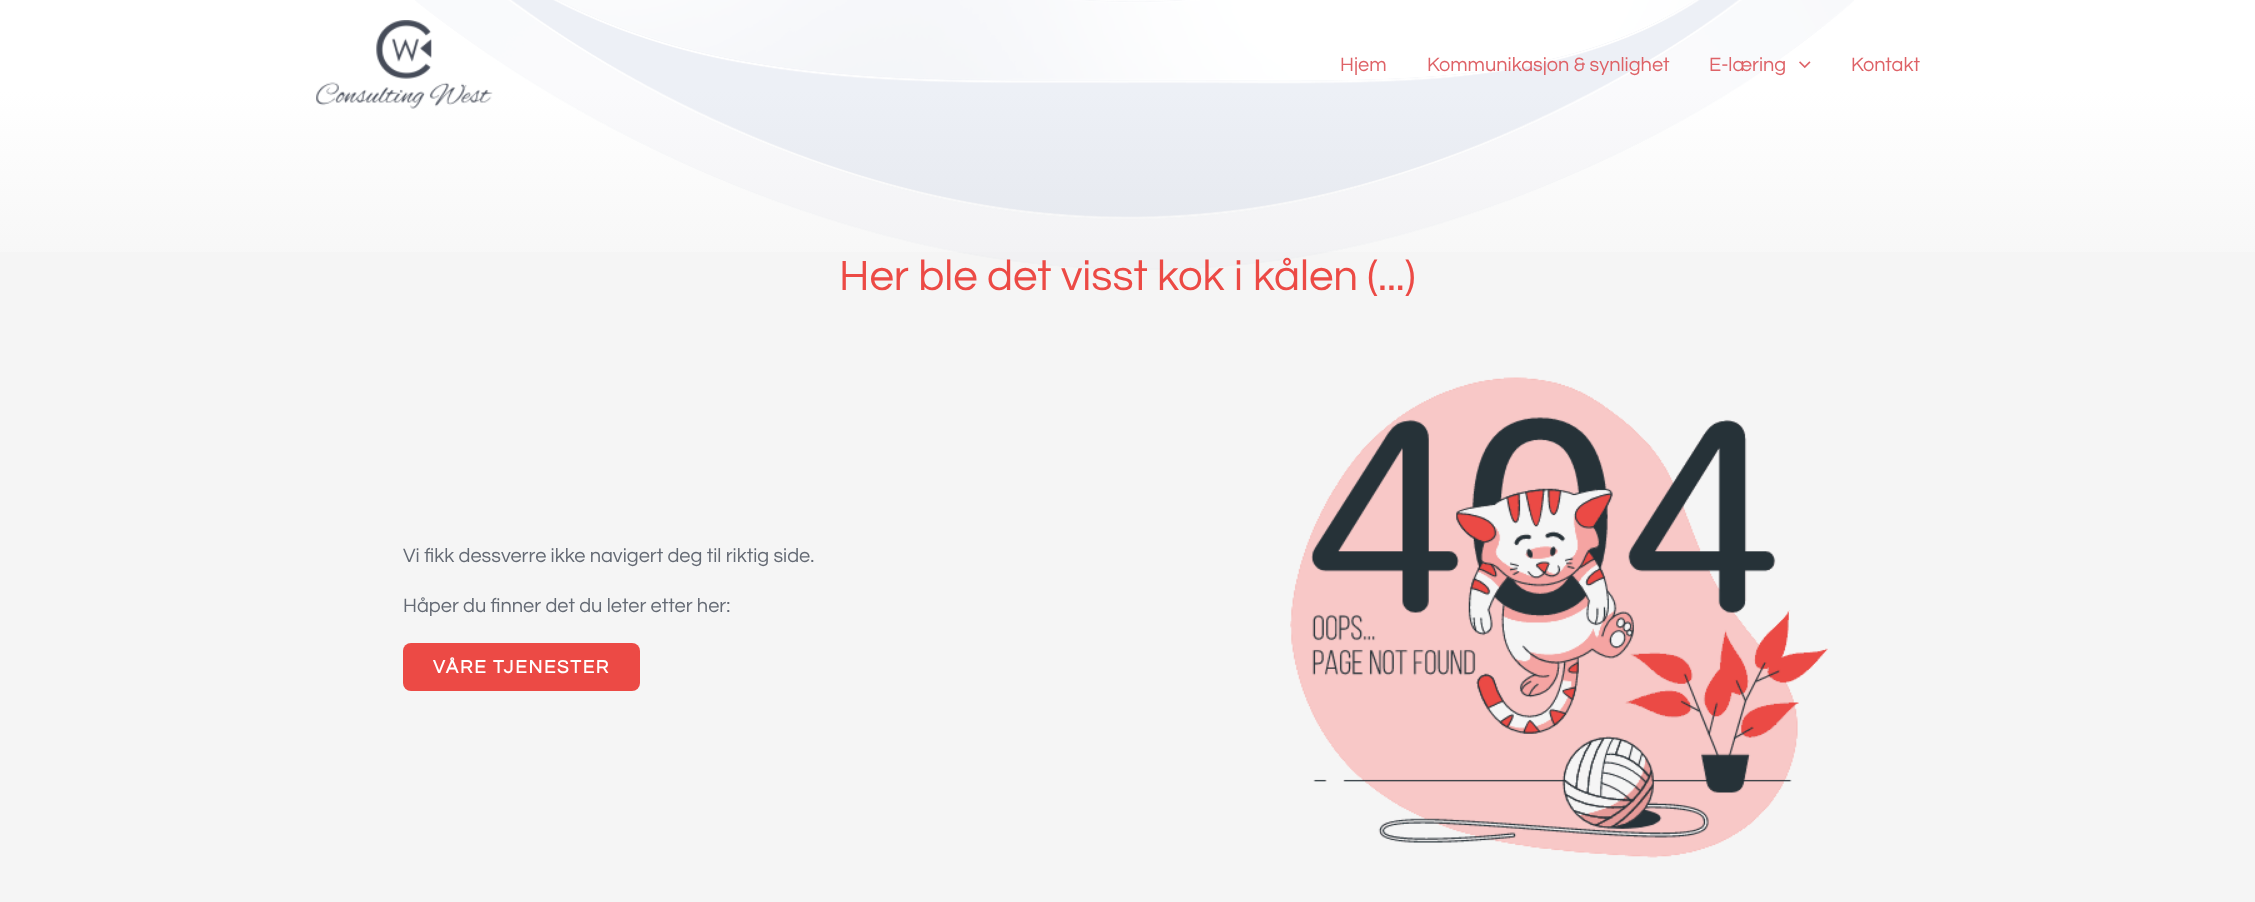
async function draw(canvas) {
	canvas.width = 2255;
	canvas.height = 902;
	const c = canvas.getContext('2d');
	c.miterLimit = 4;
	c.fontKerning = 'normal';
	async function loadImage(src) {
		const img = new Image();
		img.src = src;
		await img.decode();
		return img;
	}
	let gradient;

	c.fillStyle = '#f5f5f5';
	c.fillRect(0, 0, 2255, 902);
	gradient = c.createLinearGradient(1128, 0, 1128, 305);
	gradient.addColorStop(0.3, '#fff');
	gradient.addColorStop(1, '#f5f5f5');
	c.fillStyle = gradient;
	c.fillRect(0, 0, 2255, 252);
	c.drawImage(await loadImage('img3.png'), 415, 0, 1439, 270);
	c.drawImage(await loadImage('img1.png'), 316, 20, 177, 89);
	c.font = '20px Questrial';
	c.fillStyle = '#de6267';
	for (const [text, x, y] of [
		['Hjem', 1340, 71],
		['Kommunikasjon & synlighet', 1427, 71],
		['E-læring', 1709, 71],
	]) {
		c.fillText(text, x, y);
	}
	c.drawImage(await loadImage('img2.png'), 1799, 61, 12, 8);
	c.fillText('Kontakt', 1851, 71);
	c.font = '43.75px Questrial';
	c.fillStyle = '#ec4a45';
	c.fillText('Her ble det visst kok i kålen (...)', 839, 290);
	c.font = '20px Questrial';
	c.fillStyle = '#646a74';
	c.fillText('Vi fikk dessverre ikke navigert deg til riktig side.', 403, 562);
	c.fillText('Håper du finner det du leter etter her:', 403, 612);
	c.fillStyle = '#ec4a45';
	c.beginPath();
	c.roundRect(403, 643, 237, 48, 8);
	c.fill();
	c.letterSpacing = '1.75px';
	c.font = 'bold 18.75px Questrial';
	c.fillStyle = '#fff';
	c.fillText('VÅRE TJENESTER', 433, 673);
	c.drawImage(await loadImage('img4.png'), 1290, 377, 538, 481);
}

draw(document.querySelector('canvas'));
